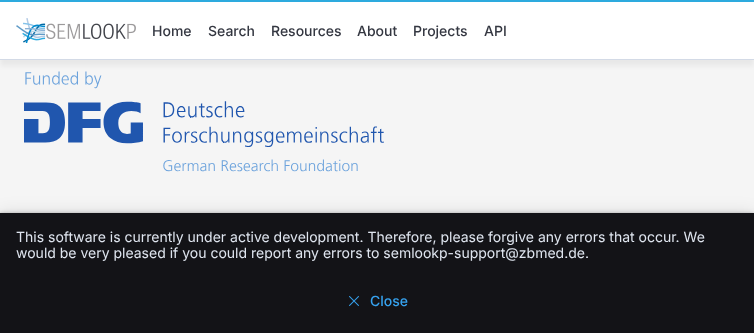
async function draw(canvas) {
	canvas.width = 754;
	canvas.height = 333;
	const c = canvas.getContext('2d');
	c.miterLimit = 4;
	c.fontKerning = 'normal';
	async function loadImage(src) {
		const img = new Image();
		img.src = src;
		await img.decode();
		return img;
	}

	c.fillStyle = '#f5f5f5';
	c.fillRect(0, 0, 754, 333);
	c.drawImage(await loadImage('img2.png'), 24, 71, 360, 101);
	c.fillStyle = '#0000000d';
	c.filter = 'blur(2.5px)';
	c.beginPath();
	c.rect(0, 6, 754, 60);
	c.fill();
	c.filter = 'none';
	for (const [x, y, w, h, color] of [
		[0, 2, 754, 57, '#fff'],
		[0, 0, 754, 2, '#2daade'],
		[0, 59, 754, 1, '#d3dae6'],
	]) {
		c.fillStyle = color;
		c.fillRect(x, y, w, h);
	}
	c.drawImage(await loadImage('img1.png'), 16, 18, 120, 25);
	c.font = '500 14px Inter';
	c.fillStyle = '#343741';
	for (const [text, x, y] of [
		['Home', 152, 36],
		['Search', 208, 36],
		['Resources', 271, 36],
		['About', 357, 36],
		['Projects', 413, 36],
		['API', 484, 36],
	]) {
		c.fillText(text, x, y);
	}
	c.fillStyle = '#0000001c';
	c.filter = 'blur(8.5px)';
	c.beginPath();
	c.rect(0, 213, 754, 120);
	c.fill();
	c.filter = 'none';
	c.fillStyle = '#00000024';
	c.filter = 'blur(2.5px)';
	c.beginPath();
	c.rect(0, 213, 754, 120);
	c.fill();
	c.filter = 'none';
	c.filter = 'blur(1px)';
	c.beginPath();
	c.rect(0, 213, 754, 120);
	c.fill();
	c.filter = 'none';
	c.fillStyle = '#00000036';
	c.filter = 'blur(0.5px)';
	c.beginPath();
	c.rect(0, 213, 754, 120);
	c.fill();
	c.filter = 'none';
	c.fillStyle = '#131317';
	c.fillRect(0, 213, 754, 120);
	c.font = '14px Inter';
	c.fillStyle = '#dfe5ef';
	c.fillText('This software is currently under active development. Therefore, please forgive any errors that occur. We', 16, 242);
	c.fillText('would be very pleased if you could report any errors to semlookp-support@zbmed.de.', 16, 258);
	c.drawImage(await loadImage('img3.png'), 349, 296, 10, 10);
	c.font = '500 14px Inter';
	c.fillStyle = '#36a2ef';
	c.fillText('Close', 370, 306);
}

draw(document.querySelector('canvas'));
